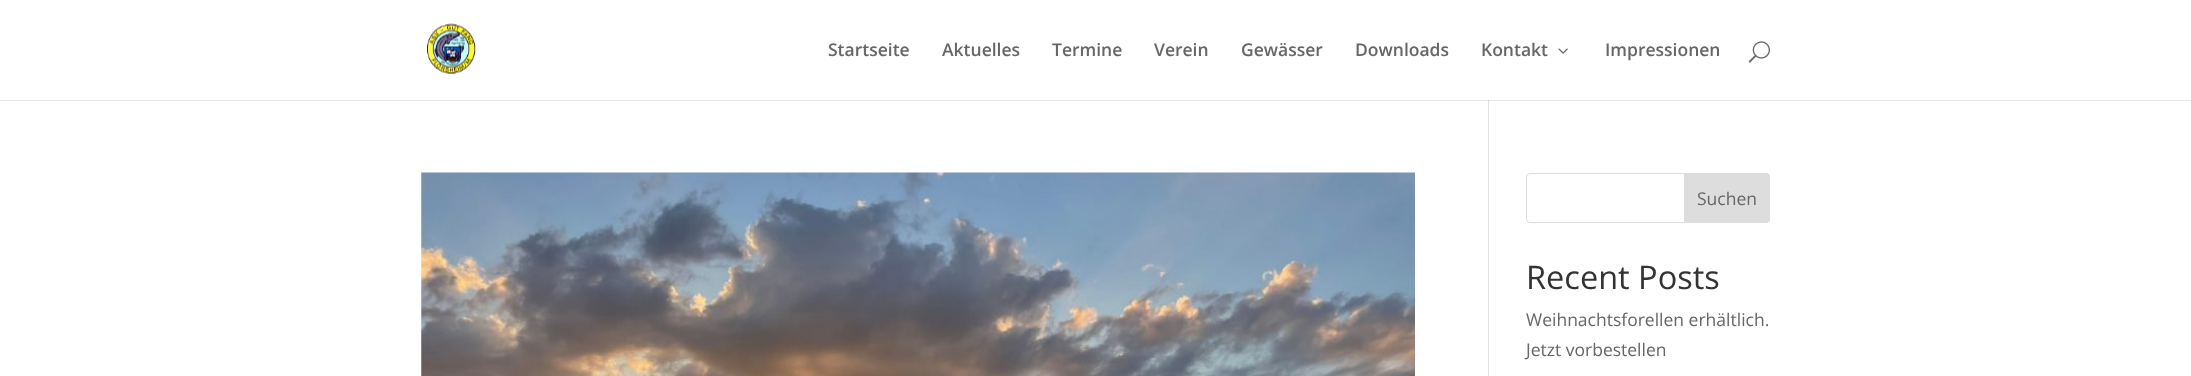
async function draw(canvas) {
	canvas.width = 2191;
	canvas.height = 376;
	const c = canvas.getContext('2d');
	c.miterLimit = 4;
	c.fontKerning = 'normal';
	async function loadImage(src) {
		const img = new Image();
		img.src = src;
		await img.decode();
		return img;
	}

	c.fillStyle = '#fff';
	c.fillRect(0, 0, 2191, 376);
	c.fillStyle = '#e6e6e6';
	c.fillRect(0, 100, 2191, 1);
	c.drawImage(await loadImage('img1.png'), 427, 23, 49, 51);
	c.font = '600 17.5px Open Sans';
	c.fillStyle = '#666';
	for (const [text, x, y] of [
		['Startseite', 828, 56],
		['Aktuelles', 942, 56],
		['Termine', 1052, 56],
		['Verein', 1154, 56],
		['Gewässer', 1241, 56],
		['Downloads', 1355, 56],
		['Kontakt', 1481, 56],
	]) {
		c.fillText(text, x, y);
	}
	c.drawImage(await loadImage('img2.png'), 1558, 48, 10, 6);
	c.fillText('Impressionen', 1605, 56);
	c.drawImage(await loadImage('img3.png'), 1748, 41, 22, 22);
	c.fillStyle = '#e2e2e2';
	c.fillRect(1488, 100, 1, 276);
	c.fillStyle = '#cbcbcb';
	c.fillRect(1488, 100, 1, 1);
	c.drawImage(await loadImage('img4.png'), 421, 172, 994, 204);
	c.beginPath();
	c.roundRect(1526.5, 173.5, 243, 49, 3.5);
	c.strokeStyle = '#ddd';
	c.stroke();
	c.fillStyle = '#ddd';
	c.beginPath();
	c.roundRect(1684.5, 173.5, 85, 49, [0, 3.5, 3.5, 0]);
	c.fill();
	c.stroke();
	c.font = '17.5px Open Sans';
	c.fillStyle = '#666';
	c.fillText('Suchen', 1697, 205);
	c.font = '32.5px Open Sans';
	c.fillStyle = '#333';
	c.fillText('Recent Posts', 1526, 289);
	c.font = '17.5px Open Sans';
	c.fillStyle = '#666';
	c.fillText('Weihnachtsforellen erhältlich.', 1526, 326);
	c.fillText('Jetzt vorbestellen', 1526, 356);
}

draw(document.querySelector('canvas'));
